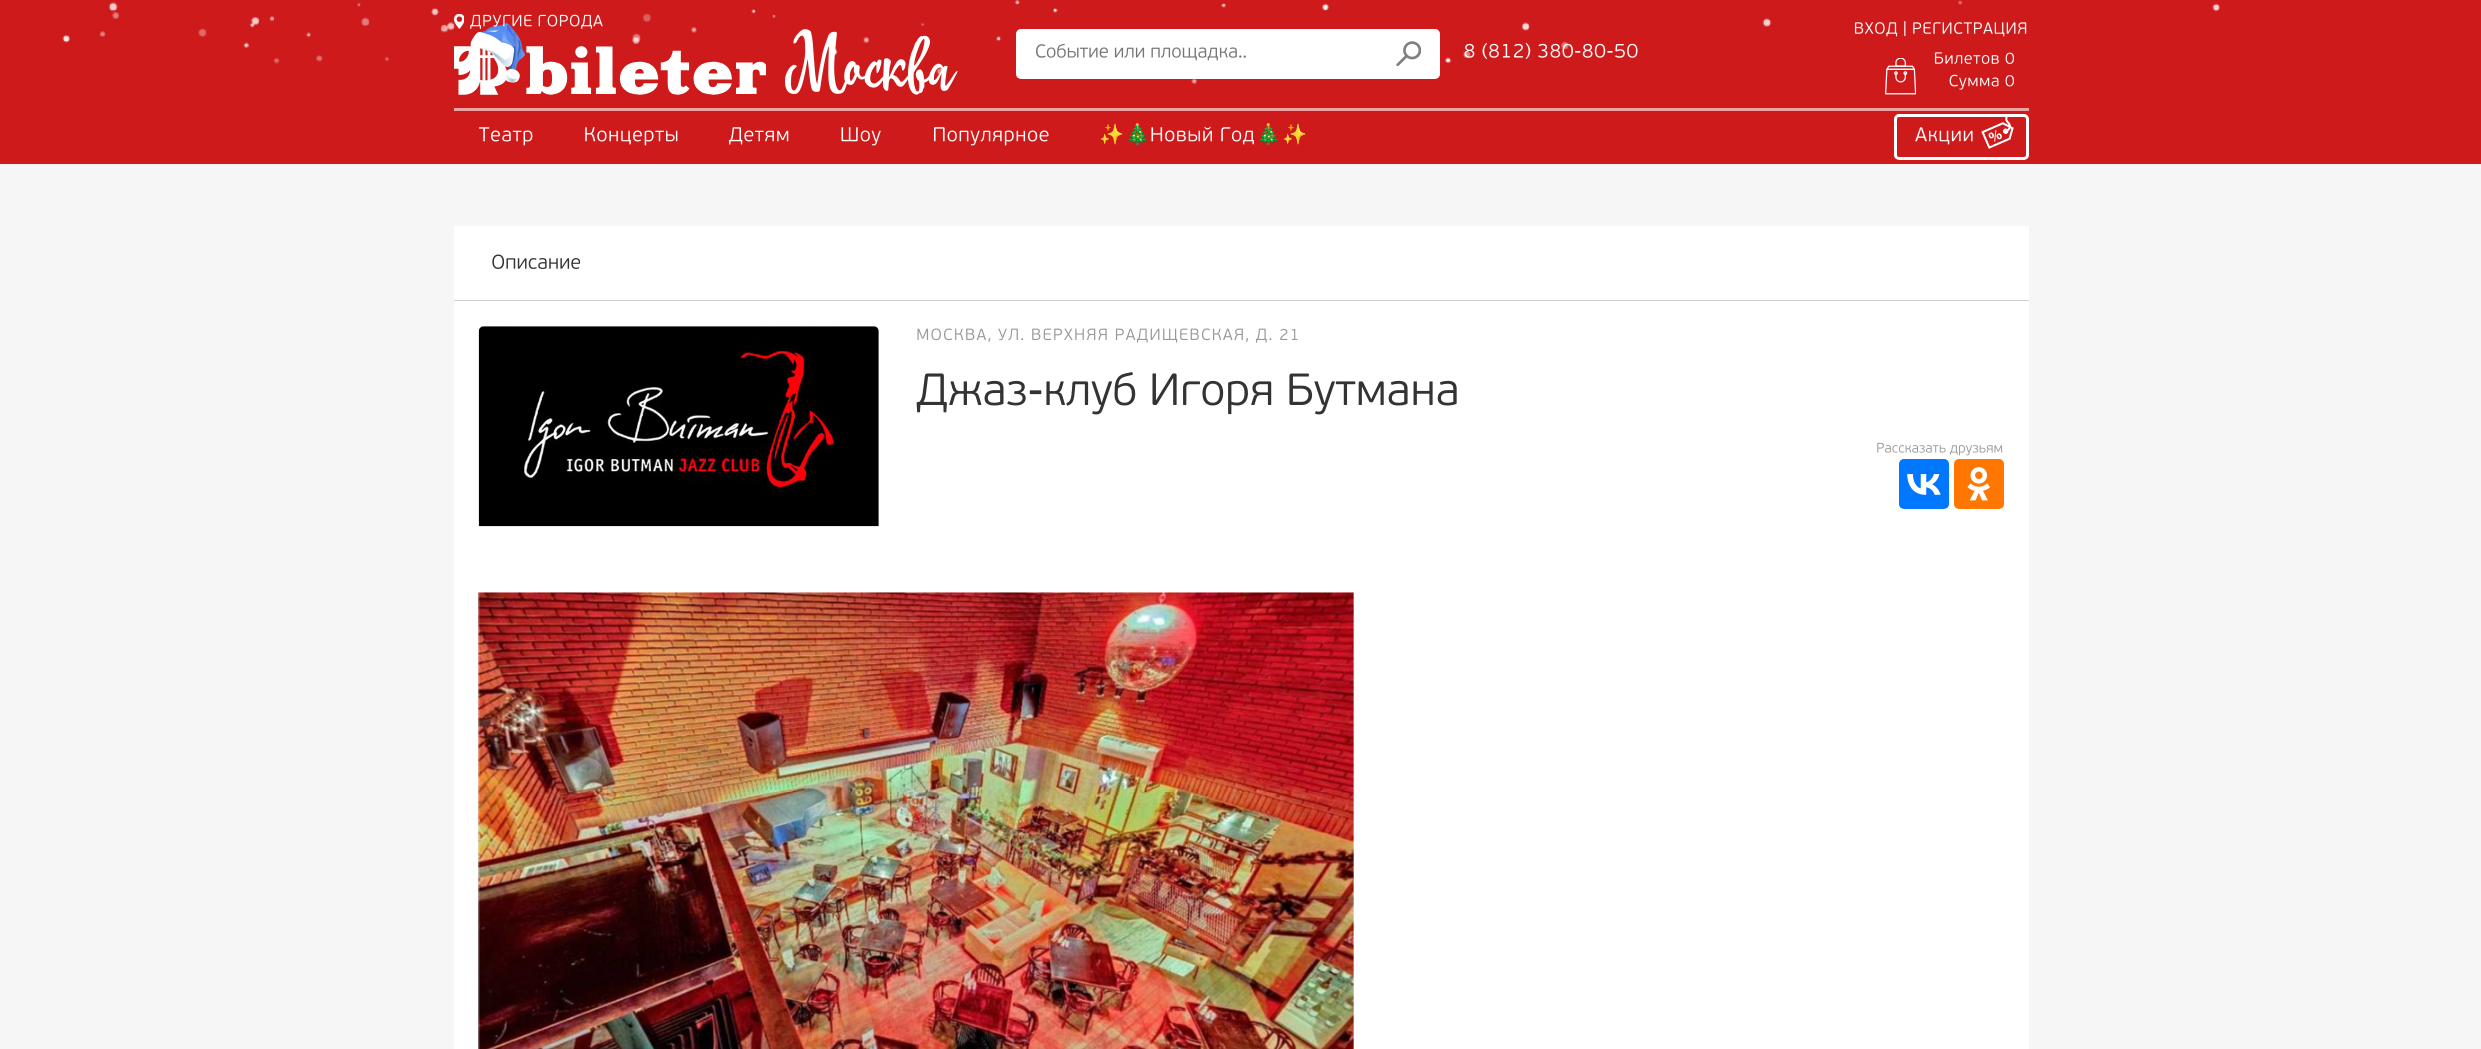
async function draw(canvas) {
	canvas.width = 2481;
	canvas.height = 1049;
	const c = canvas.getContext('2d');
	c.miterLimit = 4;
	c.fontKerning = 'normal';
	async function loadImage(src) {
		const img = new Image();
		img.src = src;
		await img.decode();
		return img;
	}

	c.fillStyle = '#f6f6f6';
	c.fillRect(0, 0, 2481, 1049);
	c.fillStyle = '#ce1a1b';
	c.fillRect(0, 0, 2481, 164);
	c.drawImage(await loadImage('img1.png'), 62, 0, 2159, 84);
	c.fillStyle = '#eba3a4';
	c.fillRect(454, 108, 1575, 3);
	c.drawImage(await loadImage('img5.png'), 454, 22, 312, 73);
	c.drawImage(await loadImage('img2.png'), 454, 14, 10, 15);
	c.drawImage(await loadImage('img3.png'), 470, 14, 62, 15);
	c.drawImage(await loadImage('img4.png'), 538, 14, 65, 15);
	c.drawImage(await loadImage('img6.png'), 785, 29, 173, 66);
	c.fillStyle = '#fff';
	c.beginPath();
	c.roundRect(1016, 29, 362, 50, [5, 0, 0, 5]);
	c.fill();
	c.drawImage(await loadImage('img7.png'), 1036, 43, 210, 18);
	c.beginPath();
	c.roundRect(1378, 29, 62, 50, [0, 5, 5, 0]);
	c.fill();
	c.drawImage(await loadImage('img8.png'), 1396, 41, 25, 25);
	c.drawImage(await loadImage('img9.png'), 1464, 43, 174, 16);
	c.drawImage(await loadImage('img10.png'), 1854, 21, 173, 16);
	c.drawImage(await loadImage('img11.png'), 1885, 58, 31, 37);
	c.drawImage(await loadImage('img12.png'), 1934, 52, 80, 12);
	c.drawImage(await loadImage('img13.png'), 1949, 74, 65, 16);
	c.drawImage(await loadImage('img14.png'), 479, 127, 54, 19);
	c.drawImage(await loadImage('img15.png'), 585, 127, 93, 19);
	c.drawImage(await loadImage('img16.png'), 728, 127, 61, 18);
	c.drawImage(await loadImage('img17.png'), 841, 127, 40, 19);
	c.drawImage(await loadImage('img18.png'), 934, 127, 115, 19);
	c.letterSpacing = '1px';
	c.font = '20px Noto Color Emoji';
	c.fillText('✨🎄', 1099, 141);
	c.drawImage(await loadImage('img19.png'), 1151, 126, 103, 19);
	c.fillText('🎄✨', 1256, 141);
	c.beginPath();
	c.roundRect(1895.5, 115.5, 132, 43, 3.5);
	c.strokeStyle = '#fff';
	c.lineWidth = 3;
	c.stroke();
	c.drawImage(await loadImage('img20.png'), 1915, 127, 58, 18);
	c.drawImage(await loadImage('img21.png'), 1981, 117, 33, 32);
	c.fillRect(454, 226, 1575, 823);
	c.fillStyle = '#cfcfcf';
	c.fillRect(454, 300, 1575, 1);
	c.drawImage(await loadImage('img22.png'), 492, 254, 88, 15);
	c.drawImage(await loadImage('img23.png'), 478, 326, 401, 201);
	c.drawImage(await loadImage('img24.png'), 478, 326, 401, 201);
	c.drawImage(await loadImage('img25.png'), 917, 328, 381, 15);
	c.drawImage(await loadImage('img26.png'), 916, 372, 541, 43);
	c.drawImage(await loadImage('img27.png'), 1877, 442, 126, 14);
	c.fillStyle = '#07f';
	c.beginPath();
	c.roundRect(1899, 459, 50, 50, 5);
	c.fill();
	c.drawImage(await loadImage('img28.png'), 1907, 474, 34, 21);
	c.fillStyle = '#f70';
	c.beginPath();
	c.roundRect(1954, 459, 50, 50, 5);
	c.fill();
	c.drawImage(await loadImage('img29.png'), 1967, 467, 23, 34);
	c.drawImage(await loadImage('img30.png'), 478, 592, 876, 457);
}

draw(document.querySelector('canvas'));
